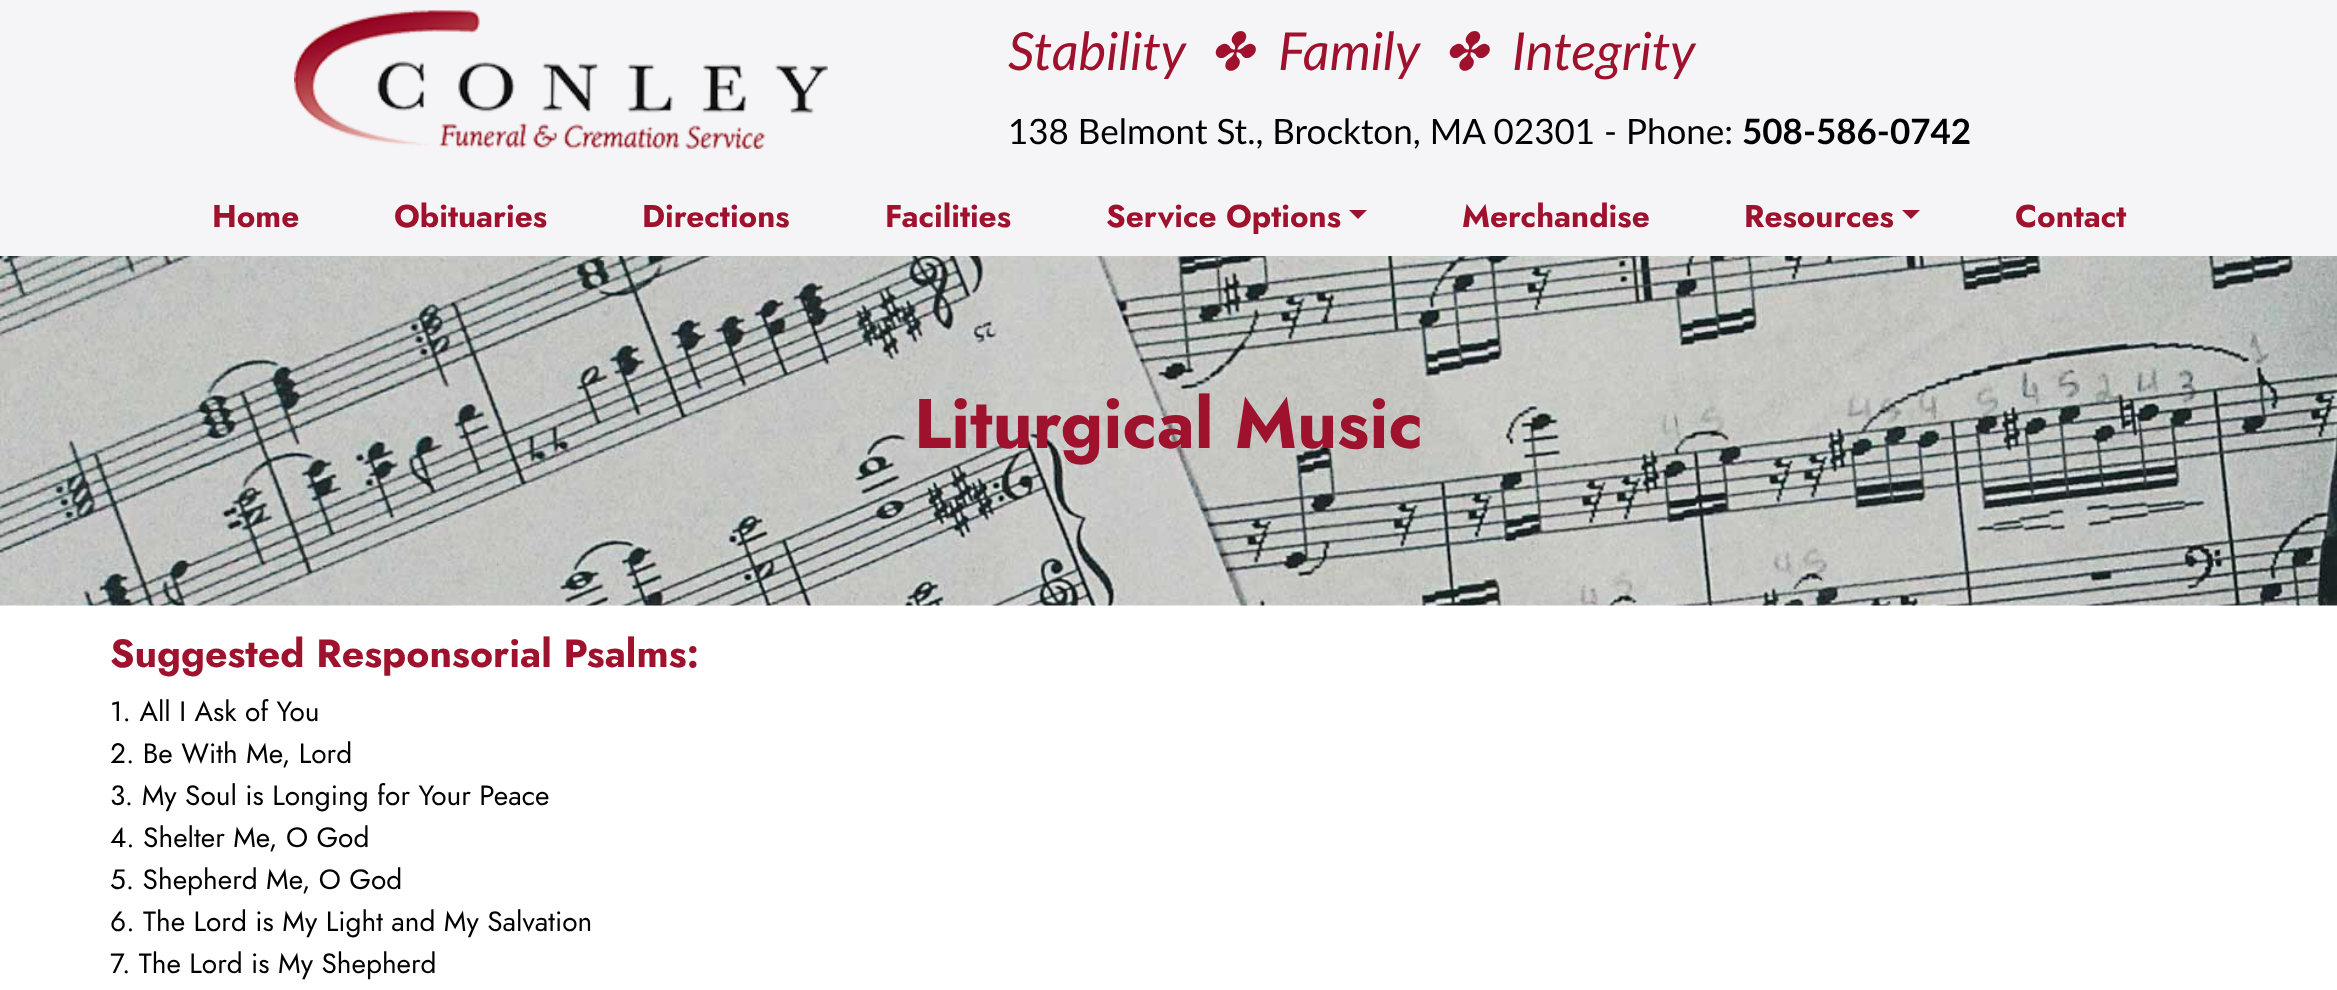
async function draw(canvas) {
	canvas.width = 2337;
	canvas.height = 990;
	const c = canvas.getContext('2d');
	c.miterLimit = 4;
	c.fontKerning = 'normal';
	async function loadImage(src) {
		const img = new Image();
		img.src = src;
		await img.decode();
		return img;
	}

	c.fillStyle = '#fff';
	c.fillRect(0, 0, 2337, 990);
	c.fillStyle = '#f5f5f7';
	c.fillRect(0, 0, 2337, 256);
	c.drawImage(await loadImage('img1.png'), 294, 10, 534, 139);
	c.font = 'italic 52.5px Lato';
	c.fillStyle = '#9e122d';
	c.fillText('Stability', 1008, 70);
	c.font = 'italic 52.5px DejaVu Sans';
	c.fillText('✤', 1209, 70);
	c.font = 'italic 52.5px Lato';
	c.fillText('Family', 1278, 70);
	c.font = 'italic 52.5px DejaVu Sans';
	c.fillText('✤', 1443, 70);
	c.font = 'italic 52.5px Lato';
	c.fillText('Integrity', 1512, 70);
	c.font = '35px Lato';
	c.fillStyle = '#000';
	c.fillText('138 Belmont St., Brockton, MA 02301 - Phone:', 1008, 144);
	c.font = 'bold 35px Lato';
	c.fillText('508-586-0742', 1742, 144);
	c.font = 'bold 31.5px Jost';
	c.fillStyle = '#9e122d';
	for (const [text, x, y] of [
		['Home', 212, 227],
		['Obituaries', 394, 227],
		['Directions', 642, 227],
		['Facilities', 885, 227],
		['Service Options', 1106, 227],
	]) {
		c.fillText(text, x, y);
	}
	c.beginPath();
	c.moveTo(1349, 210);
	c.lineTo(1367, 210);
	c.lineTo(1358, 219);
	c.closePath();
	c.fill();
	c.fillText('Merchandise', 1462, 227);
	c.fillText('Resources', 1744, 227);
	c.beginPath();
	c.moveTo(1902, 210);
	c.lineTo(1920, 210);
	c.lineTo(1911, 219);
	c.closePath();
	c.fill();
	c.fillText('Contact', 2015, 227);
	c.drawImage(await loadImage('img2.png'), 0, 256, 2337, 350);
	c.font = 'bold 70px Jost';
	c.fillText('Liturgical Music', 914, 448);
	c.font = 'bold 39.25px Jost';
	c.fillText('Suggested Responsorial Psalms:', 110, 667);
	c.font = '28px Jost';
	c.fillStyle = '#000';
	for (const [text, x, y] of [
		['1. All I Ask of You', 110, 721],
		['2. Be With Me, Lord', 110, 763],
		['3. My Soul is Longing for Your Peace', 110, 805],
		['4. Shelter Me, O God', 110, 847],
		['5. Shepherd Me, O God', 110, 889],
		['6. The Lord is My Light and My Salvation', 110, 931],
		['7. The Lord is My Shepherd', 110, 973],
	]) {
		c.fillText(text, x, y);
	}
}

draw(document.querySelector('canvas'));
